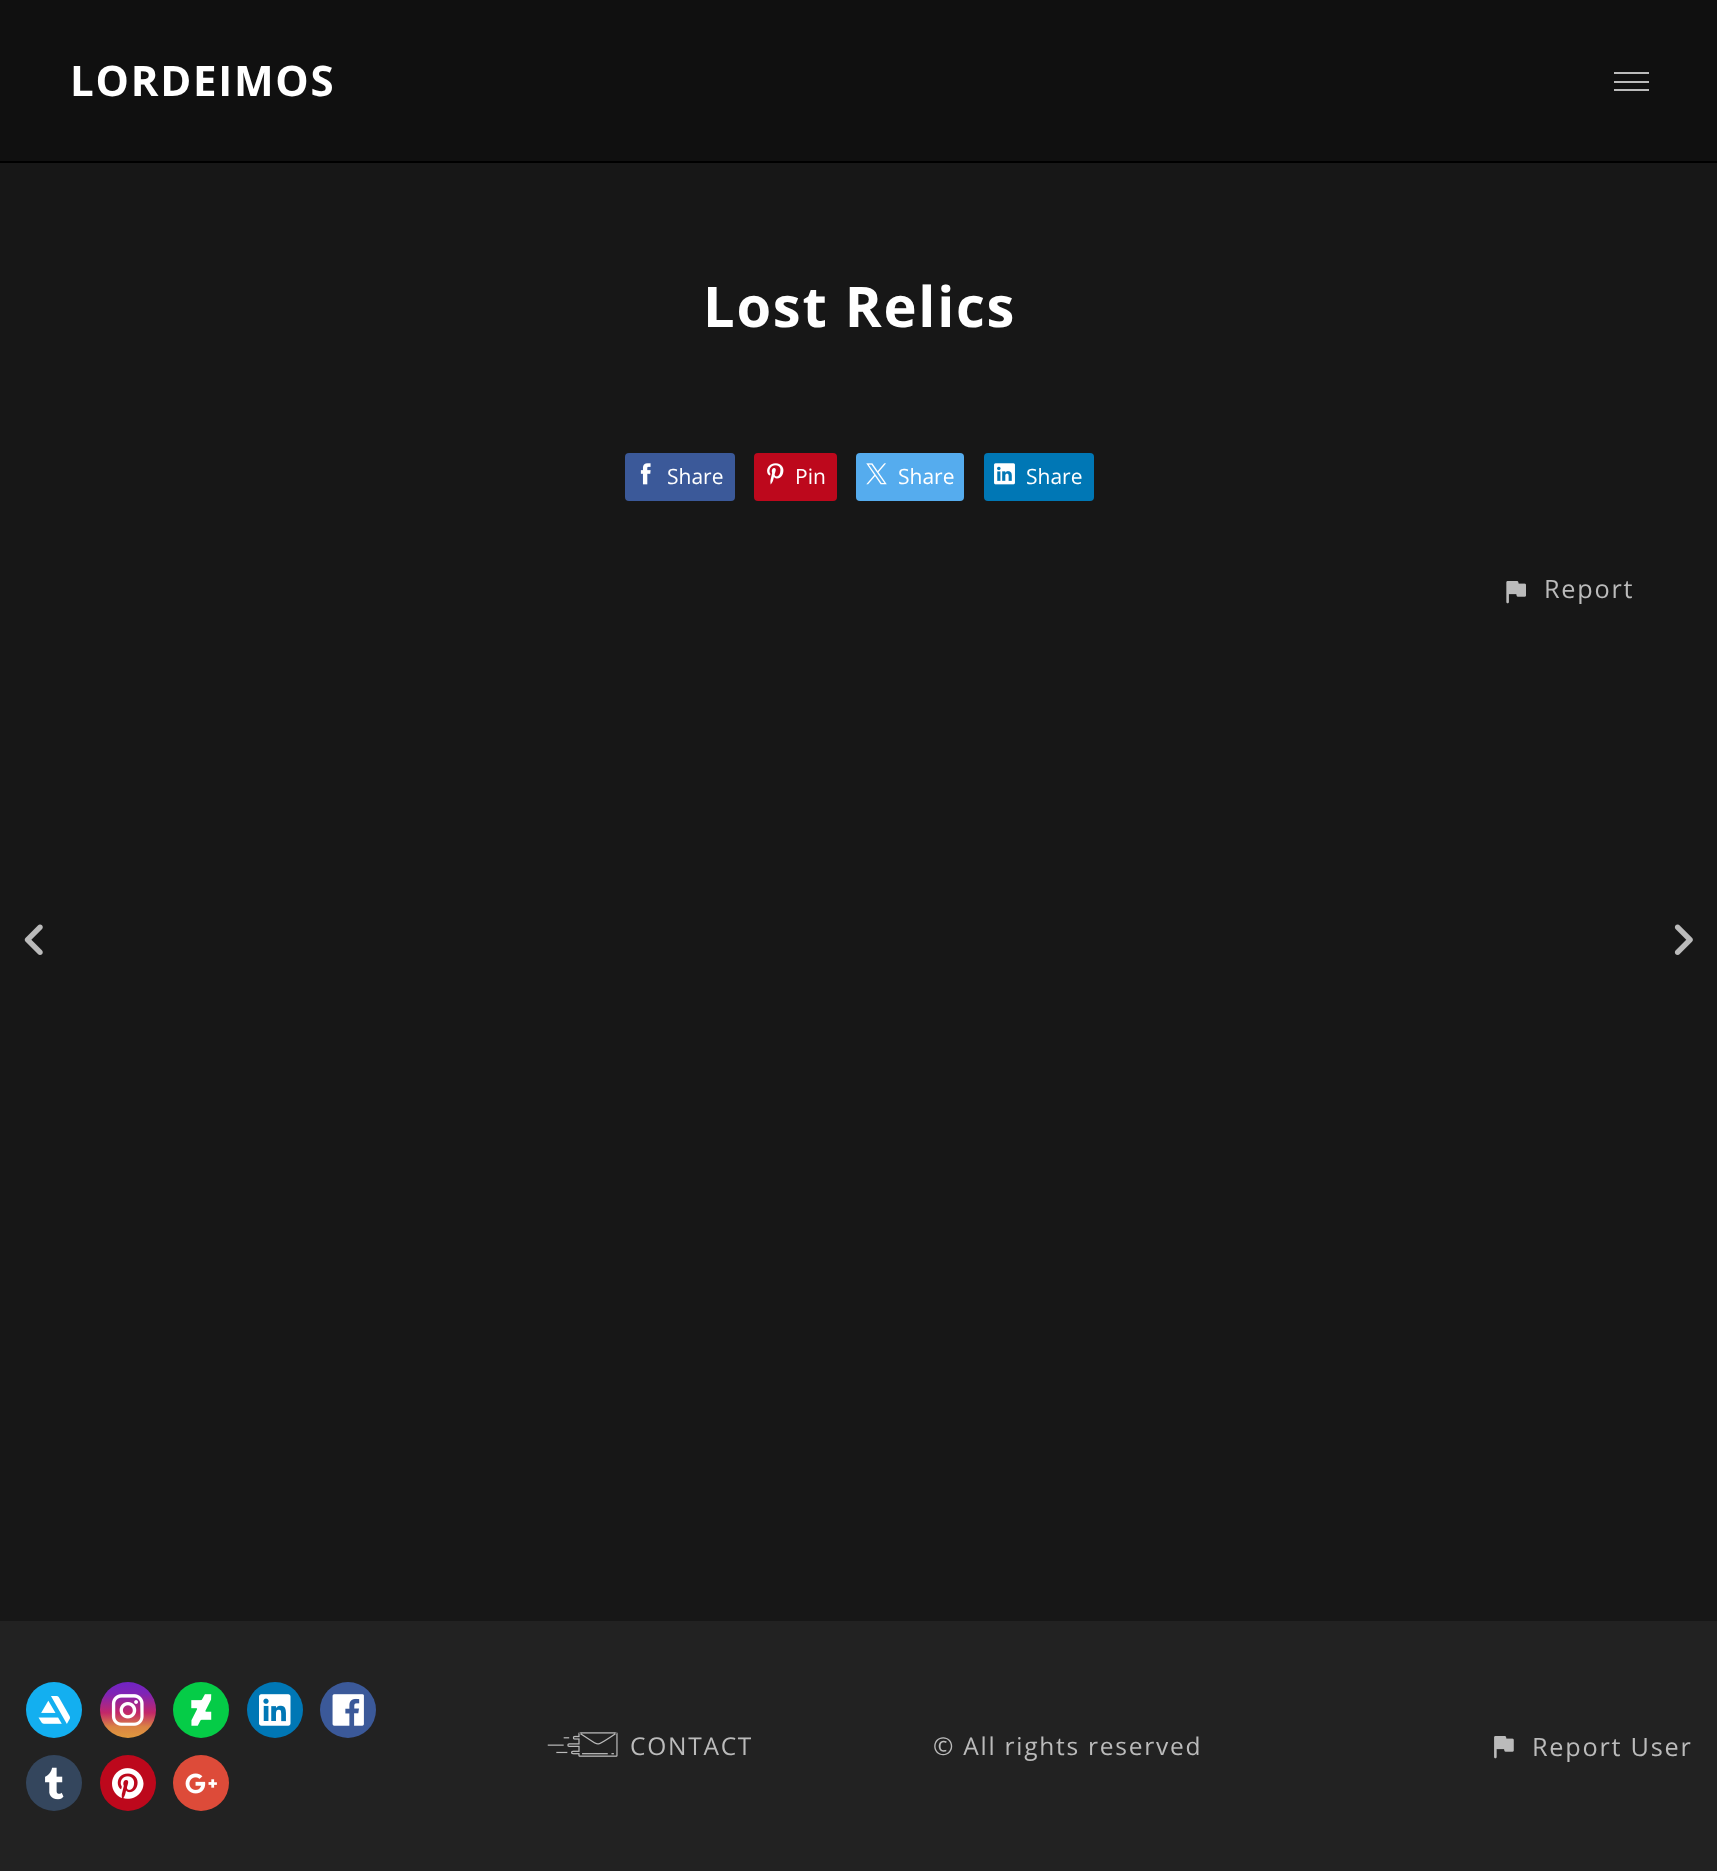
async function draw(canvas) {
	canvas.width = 1717;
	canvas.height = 1871;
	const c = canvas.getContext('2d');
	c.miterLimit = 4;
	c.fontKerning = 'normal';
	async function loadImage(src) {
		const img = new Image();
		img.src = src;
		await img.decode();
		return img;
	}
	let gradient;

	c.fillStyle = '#171717';
	c.fillRect(0, 0, 1717, 1871);
	c.fillStyle = '#101010';
	c.fillRect(0, 0, 1717, 161);
	c.fillStyle = '#000';
	c.fillRect(0, 161, 1717, 2);
	c.letterSpacing = '1.75px';
	c.font = 'bold 42px Open Sans';
	c.fillStyle = '#fff';
	c.fillText('LORDEIMOS', 70, 96);
	for (const [x, y, w, h, color] of [
		[1614, 72, 35, 2, '#bbb'],
		[1614, 81, 35, 2, '#bbb'],
		[1614, 89, 35, 2, '#bbb'],
	]) {
		c.fillStyle = color;
		c.fillRect(x, y, w, h);
	}
	c.font = 'bold 56px Open Sans';
	c.fillStyle = '#fff';
	c.fillText('Lost Relics', 703, 327);
	c.fillStyle = '#3b5999';
	c.beginPath();
	c.roundRect(625, 453, 110, 48, 4);
	c.fill();
	c.drawImage(await loadImage('img1.png'), 640, 463, 11, 22);
	c.letterSpacing = '0px';
	c.font = '21px Open Sans';
	c.fillStyle = '#fff';
	c.fillText('Share', 667, 484);
	c.fillStyle = '#bd081c';
	c.beginPath();
	c.roundRect(754, 453, 83, 48, 4);
	c.fill();
	c.drawImage(await loadImage('img2.png'), 767, 463, 17, 22);
	c.fillStyle = '#fff';
	c.fillText('Pin', 795, 484);
	c.fillStyle = '#55acee';
	c.beginPath();
	c.roundRect(856, 453, 108, 48, 4);
	c.fill();
	c.drawImage(await loadImage('img3.png'), 866, 463, 21, 22);
	c.fillStyle = '#fff';
	c.fillText('Share', 898, 484);
	c.fillStyle = '#0077b5';
	c.beginPath();
	c.roundRect(984, 453, 110, 48, 4);
	c.fill();
	c.drawImage(await loadImage('img4.png'), 994, 463, 21, 22);
	c.fillStyle = '#fff';
	c.fillText('Share', 1026, 484);
	c.drawImage(await loadImage('img5.png'), 1506, 581, 20, 23);
	c.letterSpacing = '1.75px';
	c.font = '25.25px Open Sans';
	c.fillStyle = '#bbb';
	c.fillText('Report', 1544, 598);
	c.drawImage(await loadImage('img6.png'), 24, 924, 19, 31);
	c.drawImage(await loadImage('img7.png'), 1674, 924, 19, 31);
	c.fillStyle = '#222';
	c.fillRect(0, 1621, 1717, 250);
	c.fillStyle = '#13aff0';
	c.beginPath();
	c.arc(54, 1710, 28, 0, 2 * Math.PI);
	c.fill();
	c.drawImage(await loadImage('img8.png'), 38, 1696, 32, 28);
	gradient = c.createLinearGradient(128, 1738, 128, 1682);
	gradient.addColorStop(0, '#df993d');
	gradient.addColorStop(0.2, '#da8444');
	gradient.addColorStop(0.45, '#c32769');
	gradient.addColorStop(0.79, '#7f24b5');
	gradient.addColorStop(1, '#7024c4');
	c.fillStyle = gradient;
	c.beginPath();
	c.arc(128, 1710, 28, 0, 2 * Math.PI);
	c.fill();
	c.drawImage(await loadImage('img9.png'), 111, 1694, 33, 32);
	c.fillStyle = '#05cc47';
	c.beginPath();
	c.arc(201, 1710, 28, 0, 2 * Math.PI);
	c.fill();
	c.drawImage(await loadImage('img10.png'), 191, 1694, 21, 32);
	c.fillStyle = '#0077b5';
	c.beginPath();
	c.arc(275, 1710, 28, 0, 2 * Math.PI);
	c.fill();
	c.drawImage(await loadImage('img11.png'), 259, 1694, 32, 32);
	c.fillStyle = '#3b5999';
	c.beginPath();
	c.arc(348, 1710, 28, 0, 2 * Math.PI);
	c.fill();
	c.drawImage(await loadImage('img12.png'), 332, 1694, 32, 32);
	c.fillStyle = '#34465d';
	c.beginPath();
	c.arc(54, 1783, 28, 0, 2 * Math.PI);
	c.fill();
	c.drawImage(await loadImage('img13.png'), 45, 1767, 19, 33);
	c.fillStyle = '#bd081c';
	c.beginPath();
	c.arc(128, 1783, 28, 0, 2 * Math.PI);
	c.fill();
	c.drawImage(await loadImage('img14.png'), 112, 1768, 32, 31);
	c.fillStyle = '#dd4b39';
	c.beginPath();
	c.arc(201, 1783, 28, 0, 2 * Math.PI);
	c.fill();
	c.drawImage(await loadImage('img15.png'), 185, 1773, 32, 21);
	c.drawImage(await loadImage('img16.png'), 547, 1732, 71, 25);
	c.font = '24.5px Open Sans';
	c.fillStyle = '#bbb';
	c.fillText('CONTACT', 630, 1755);
	c.fillText('© All rights reserved', 933, 1755);
	c.drawImage(await loadImage('img17.png'), 1494, 1736, 20, 23);
	c.font = '25.25px Open Sans';
	c.fillText('Report User', 1532, 1756);
}

draw(document.querySelector('canvas'));
